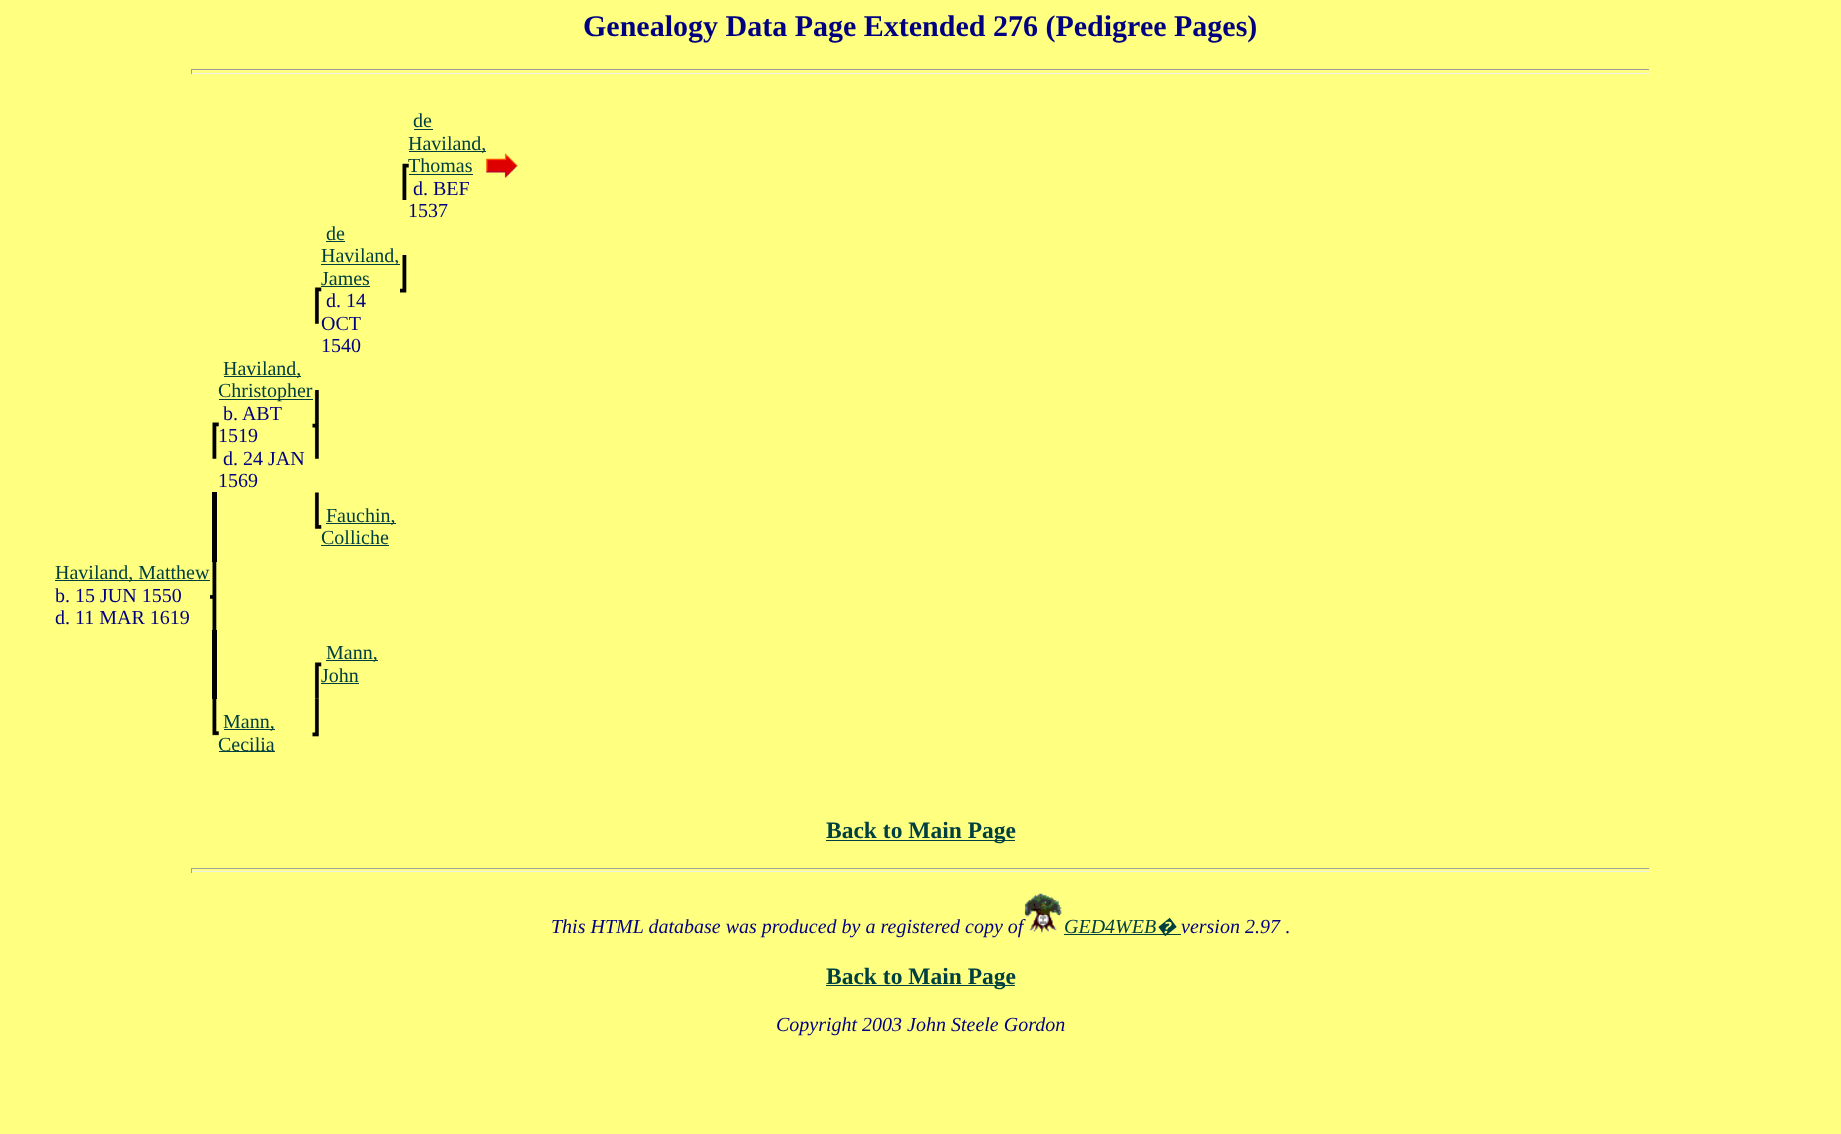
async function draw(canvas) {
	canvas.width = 1841;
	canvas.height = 1134;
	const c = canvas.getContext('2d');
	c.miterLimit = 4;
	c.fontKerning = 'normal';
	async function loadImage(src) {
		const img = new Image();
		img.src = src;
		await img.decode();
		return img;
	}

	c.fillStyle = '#ffff80';
	c.fillRect(0, 0, 1841, 1134);
	c.font = 'bold 30px Liberation Serif';
	c.fillStyle = '#000080';
	c.fillText('Genealogy Data Page Extended 276 (Pedigree Pages)', 583, 36);
	for (const [x, y, w, h, color] of [
		[191, 69, 1459, 1, '#9f9f9f'],
		[1649, 69, 1, 5, '#eee'],
		[191, 73, 1459, 1, '#eee'],
		[191, 69, 1, 5, '#9f9f9f'],
	]) {
		c.fillStyle = color;
		c.fillRect(x, y, w, h);
	}
	c.drawImage(await loadImage('img1.png'), 402, 163, 7, 37);
	c.font = '20px Liberation Serif';
	c.fillStyle = '#004040';
	c.fillText('de', 413, 127);
	c.fillRect(414, 129, 19, 1);
	c.fillRect(409, 151, 77, 1);
	c.fillText('Haviland,', 408, 150);
	c.fillText('Thomas', 408, 172);
	c.fillRect(409, 174, 64, 1);
	c.fillStyle = '#000080';
	c.fillText('d. BEF', 413, 195);
	c.fillText('1537', 408, 217);
	c.drawImage(await loadImage('img2.png'), 486, 153, 32, 25);
	c.fillStyle = '#004040';
	c.fillText('de', 326, 240);
	c.fillRect(326, 241, 19, 1);
	c.fillRect(321, 264, 79, 1);
	c.fillText('Haviland,', 321, 262);
	c.fillText('James', 321, 285);
	c.fillRect(321, 286, 49, 1);
	c.fillStyle = '#000080';
	for (const [text, x, y] of [
		['d. 14', 326, 307],
		['OCT', 321, 330],
		['1540', 321, 352],
	]) {
		c.fillText(text, x, y);
	}
	c.drawImage(await loadImage('img3.png'), 400, 255, 7, 38);
	c.drawImage(await loadImage('img4.png'), 314, 287, 8, 37);
	c.drawImage(await loadImage('img5.png'), 212, 422, 7, 37);
	c.fillStyle = '#004040';
	c.fillRect(224, 376, 77, 1);
	c.fillText('Haviland,', 223, 375);
	c.fillRect(219, 399, 94, 1);
	c.fillText('Christopher', 218, 397);
	c.fillStyle = '#000080';
	for (const [text, x, y] of [
		['b. ABT', 223, 420],
		['1519', 218, 442],
		['d. 24 JAN', 223, 465],
		['1569', 218, 487],
	]) {
		c.fillText(text, x, y);
	}
	c.drawImage(await loadImage('img6.png'), 312, 390, 7, 69);
	c.fillStyle = '#000';
	c.fillRect(212, 492, 5, 70);
	c.drawImage(await loadImage('img7.png'), 314, 492, 8, 37);
	c.fillStyle = '#004040';
	c.fillRect(326, 523, 70, 1);
	c.fillText('Fauchin,', 326, 522);
	c.fillText('Colliche', 321, 544);
	c.fillRect(321, 545, 68, 1);
	c.fillRect(55, 580, 155, 1);
	c.fillText('Haviland, Matthew', 55, 579);
	c.fillStyle = '#000080';
	c.fillText('b. 15 JUN 1550', 55, 602);
	c.fillText('d. 11 MAR 1619', 55, 624);
	c.drawImage(await loadImage('img8.png'), 210, 562, 7, 68);
	c.fillStyle = '#000';
	c.fillRect(212, 630, 5, 69);
	c.drawImage(await loadImage('img4.png'), 314, 662, 8, 37);
	c.fillStyle = '#004040';
	c.fillRect(326, 660, 52, 1);
	c.fillText('Mann,', 326, 659);
	c.fillText('John', 321, 682);
	c.fillRect(321, 683, 38, 1);
	c.drawImage(await loadImage('img9.png'), 212, 699, 7, 37);
	c.fillRect(224, 729, 51, 1);
	c.fillText('Mann,', 223, 728);
	c.fillRect(219, 751, 56, 1);
	c.fillText('Cecilia', 218, 751);
	c.drawImage(await loadImage('img10.png'), 312, 698, 7, 39);
	c.fillRect(826, 840, 189, 1);
	c.font = 'bold 23.5px Liberation Serif';
	c.fillText('Back to Main Page', 826, 838);
	for (const [x, y, w, h, color] of [
		[191, 868, 1459, 1, '#9f9f9f'],
		[1649, 868, 1, 5, '#eee'],
		[191, 871, 1459, 1, '#eee'],
		[191, 868, 1, 5, '#9f9f9f'],
	]) {
		c.fillStyle = color;
		c.fillRect(x, y, w, h);
	}
	c.font = 'italic 20px Liberation Serif';
	c.fillStyle = '#000080';
	c.fillText('This HTML database was produced by a registered copy of', 551, 933);
	c.drawImage(await loadImage('img11.png'), 1024, 893, 38, 40);
	c.fillStyle = '#004040';
	c.fillText('GED4WEB', 1064, 933);
	c.fillRect(1064, 934, 117, 1);
	c.font = 'italic 20px Noto Sans';
	c.fillText('�', 1156, 933);
	c.font = 'italic 20px Liberation Serif';
	c.fillStyle = '#000080';
	c.fillText('version 2.97', 1181, 933);
	c.font = '20px Liberation Serif';
	c.fillText('.', 1285, 933);
	c.fillStyle = '#004040';
	c.fillRect(826, 985, 189, 1);
	c.font = 'bold 23.5px Liberation Serif';
	c.fillText('Back to Main Page', 826, 984);
	c.font = 'italic 20px Liberation Serif';
	c.fillStyle = '#000080';
	c.fillText('Copyright 2003 John Steele Gordon', 776, 1031);
}

draw(document.querySelector('canvas'));
